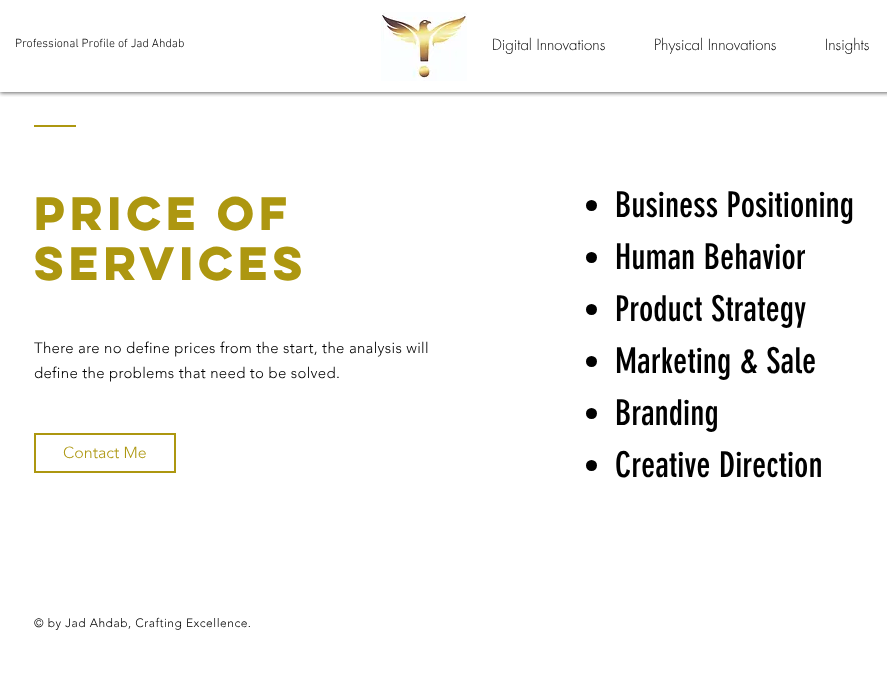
async function draw(canvas) {
	canvas.width = 887;
	canvas.height = 692;
	const c = canvas.getContext('2d');
	c.miterLimit = 4;
	c.fontKerning = 'normal';
	async function loadImage(src) {
		const img = new Image();
		img.src = src;
		await img.decode();
		return img;
	}

	c.fillStyle = '#fff';
	c.fillRect(0, 0, 887, 692);
	c.save();
	c.beginPath();
	c.rect(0, 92, 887, 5);
	c.clip();
	c.fillStyle = '#00000099';
	c.filter = 'blur(2px)';
	c.beginPath();
	c.rect(0, 1, 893, 92);
	c.fill();
	c.filter = 'none';
	c.restore();
	c.font = '300 12px "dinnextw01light"';
	c.fillStyle = '#000';
	c.fillText('Professional Profile of Jad Ahdab', 15, 47);
	c.drawImage(await loadImage('img1.png'), 381, 12, 86, 69);
	c.font = '300 15px futura';
	for (const [text, x, y] of [
		['Digital Innovations', 492, 50],
		['Physical Innovations', 654, 50],
		['Insights', 825, 50],
	]) {
		c.fillText(text, x, y);
	}
	c.fillStyle = '#ad9710';
	c.fillRect(34, 125, 42, 2);
	c.letterSpacing = '-4.25px';
	c.wordSpacing = '-1px';
	c.font = 'bold 42px "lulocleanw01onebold"';
	c.fillText('PRICE OF', 34, 230);
	c.wordSpacing = '0px';
	c.fillText('SERVICES', 34, 280);
	c.fillStyle = '#000';
	c.beginPath();
	c.arc(591.5, 205.5, 5.5, 0, 2 * Math.PI);
	c.fill();
	c.letterSpacing = '0px';
	c.font = '35px "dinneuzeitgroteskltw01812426"';
	c.fillText('Business Positioning', 615, 217);
	c.beginPath();
	c.arc(591.5, 257.5, 5.5, 0, 2 * Math.PI);
	c.fill();
	c.fillText('Human Behavior', 615, 269);
	c.beginPath();
	c.arc(591.5, 309.5, 5.5, 0, 2 * Math.PI);
	c.fill();
	c.fillText('Product Strategy', 615, 321);
	c.beginPath();
	c.arc(591.5, 361.5, 5.5, 0, 2 * Math.PI);
	c.fill();
	c.fillText('Marketing & Sale', 615, 373);
	c.beginPath();
	c.arc(591.5, 413.5, 5.5, 0, 2 * Math.PI);
	c.fill();
	c.fillText('Branding', 615, 425);
	c.beginPath();
	c.arc(591.5, 465.5, 5.5, 0, 2 * Math.PI);
	c.fill();
	c.fillText('Creative Direction', 615, 477);
	c.letterSpacing = '0.3px';
	c.font = '300 15px "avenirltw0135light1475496"';
	c.fillText('There are no define prices from the start, the analysis will', 34, 353);
	c.fillText('define the problems that need to be solved.', 34, 378);
	c.strokeStyle = '#ad9710';
	c.lineWidth = 2;
	c.strokeRect(35, 434, 140, 38);
	c.letterSpacing = '0px';
	c.font = '300 16px "avenirltw0135light1475496"';
	c.fillStyle = '#ad9710';
	c.fillText('Contact Me', 63, 458);
	c.letterSpacing = '0.5px';
	c.font = '300 12px "avenirltw0135light1475496"';
	c.fillStyle = '#000';
	c.fillText('© by Jad Ahdab, Crafting Excellence.', 34, 627);
}

draw(document.querySelector('canvas'));
